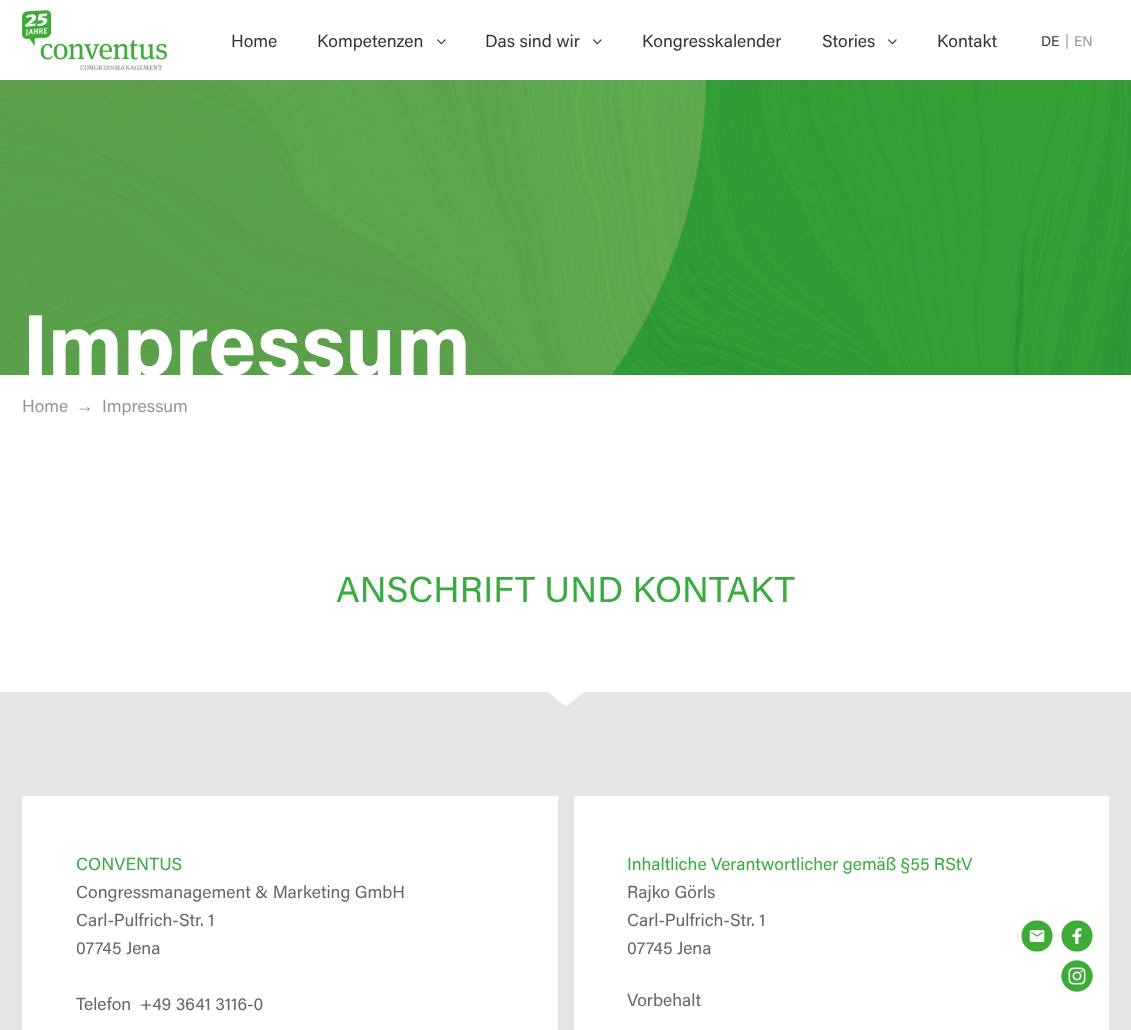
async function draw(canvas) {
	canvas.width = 1131;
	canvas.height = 1030;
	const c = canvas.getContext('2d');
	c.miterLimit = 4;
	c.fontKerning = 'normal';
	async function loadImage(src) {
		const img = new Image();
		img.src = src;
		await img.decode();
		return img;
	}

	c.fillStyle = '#fff';
	c.fillRect(0, 0, 1131, 1030);
	c.drawImage(await loadImage('img1.png'), 22, 10, 145, 60);
	c.font = '17.5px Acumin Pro';
	c.fillStyle = '#333';
	c.fillText('Home', 231, 47);
	c.fillText('Kompetenzen', 317, 47);
	c.drawImage(await loadImage('img2.png'), 437, 39, 9, 6);
	c.fillText('Das sind wir', 485, 47);
	c.drawImage(await loadImage('img2.png'), 593, 39, 9, 6);
	c.fillText('Kongresskalender', 642, 47);
	c.fillText('Stories', 822, 47);
	c.drawImage(await loadImage('img2.png'), 888, 39, 9, 6);
	c.fillText('Kontakt', 937, 47);
	c.font = '14px Acumin Pro';
	c.fillText('DE', 1041, 46);
	c.fillStyle = '#969696';
	c.fillText('|', 1065, 45);
	c.fillText('EN', 1074, 46);
	c.drawImage(await loadImage('img3.png'), 0, 80, 1131, 295);
	c.save();
	c.beginPath();
	c.rect(0, 80, 1131, 295);
	c.clip();
	c.font = 'bold 86.5px Acumin Pro';
	c.fillStyle = '#fff';
	c.fillText('Impressum', 22, 375);
	c.restore();
	c.font = '17.5px Acumin Pro';
	c.fillText('Home', 22, 412);
	c.font = '17.5px Liberation Sans';
	c.fillText('→', 76, 412);
	c.font = '17.5px Acumin Pro';
	c.fillText('Impressum', 102, 412);
	c.font = '36.1px Acumin Pro';
	c.fillStyle = '#39ab3f';
	c.fillText('ANSCHRIFT UND KONTAKT', 336, 602);
	c.fillStyle = '#e6e6e6';
	c.fillRect(0, 692, 1131, 338);
	c.fillStyle = '#fff';
	c.beginPath();
	c.moveTo(548, 692);
	c.lineTo(584, 692);
	c.lineTo(567, 706);
	c.lineTo(565, 706);
	c.closePath();
	c.fill();
	c.fillRect(22, 796, 536, 234);
	c.font = '17.5px Acumin Pro';
	c.fillStyle = '#39ab3f';
	c.fillText('CONVENTUS', 76, 870);
	c.fillStyle = '#666';
	for (const [text, x, y] of [
		['Congressmanagement & Marketing GmbH', 76, 898],
		['Carl-Pulfrich-Str. 1', 76, 926],
		['07745 Jena', 76, 954],
		['Telefon', 76, 1010],
		['+49 3641 3116-0', 140, 1010],
	]) {
		c.fillText(text, x, y);
	}
	c.fillStyle = '#fff';
	c.fillRect(574, 796, 535, 234);
	c.fillStyle = '#39ab3f';
	c.fillText('Inhaltliche Verantwortlicher gemäß §55 RStV', 627, 870);
	c.fillStyle = '#666';
	for (const [text, x, y] of [
		['Rajko Görls', 627, 898],
		['Carl-Pulfrich-Str. 1', 627, 926],
		['07745 Jena', 627, 954],
		['Vorbehalt', 627, 1006],
	]) {
		c.fillText(text, x, y);
	}
	c.drawImage(await loadImage('img4.png'), 1021, 920, 32, 32);
	c.drawImage(await loadImage('img5.png'), 1061, 920, 32, 32);
	c.drawImage(await loadImage('img6.png'), 1061, 960, 32, 32);
}

draw(document.querySelector('canvas'));
